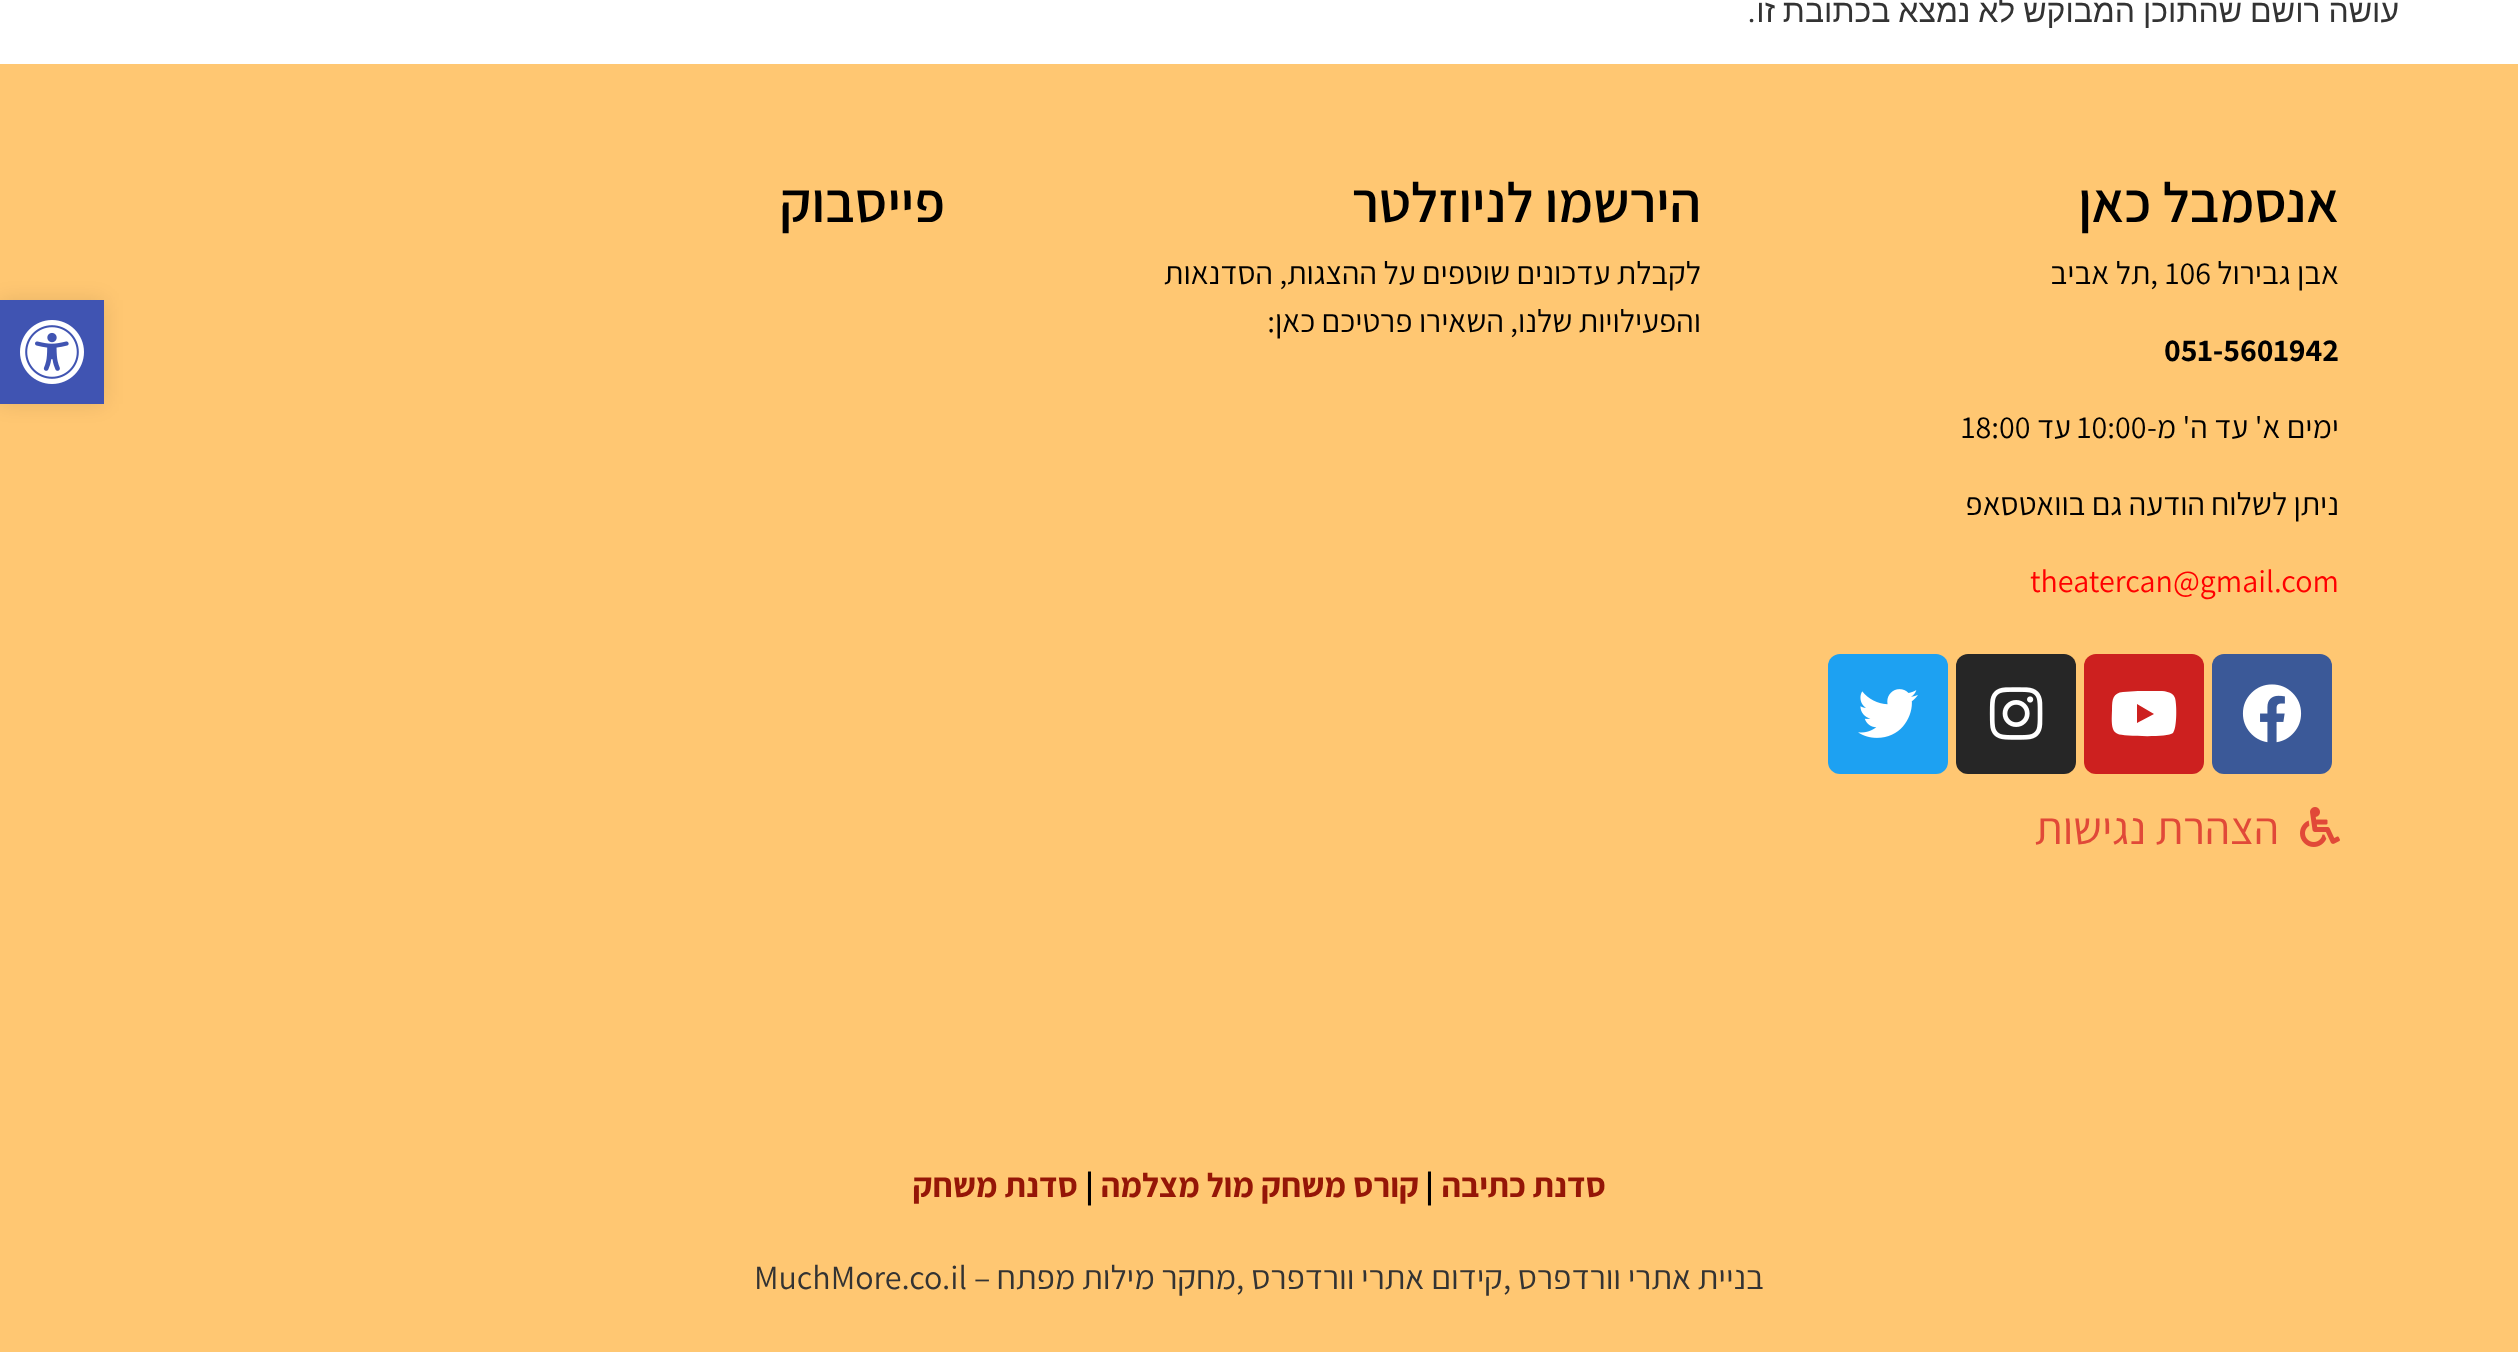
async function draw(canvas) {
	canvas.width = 2518;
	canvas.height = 1352;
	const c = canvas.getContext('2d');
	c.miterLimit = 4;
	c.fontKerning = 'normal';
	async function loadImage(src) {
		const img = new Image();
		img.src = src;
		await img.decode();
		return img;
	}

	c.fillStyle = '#fff';
	c.fillRect(0, 0, 2518, 1352);
	c.wordSpacing = '-1px';
	c.direction = 'rtl';
	c.font = '32px Liberation Sans';
	c.fillStyle = '#333';
	c.fillText('עושה רושם שהתוכן המבוקש לא נמצא בכתובת זו', 2399, 22);
	c.wordSpacing = '0px';
	c.font = '32px Roboto';
	c.fillText('.', 1756, 22);
	c.fillStyle = '#ffc772';
	c.fillRect(0, 64, 2518, 1288);
	c.font = '600 56px Assistant';
	c.fillStyle = '#000';
	c.fillText('אנסמבל כאן', 2339, 222);
	c.font = '32px Assistant';
	c.fillText('אבן גבירול', 2339, 284);
	c.direction = 'ltr';
	c.fillText('106', 2165, 284);
	c.direction = 'rtl';
	c.fillText(',תל אביב', 2158, 284);
	c.direction = 'ltr';
	c.font = 'bold 32px Assistant';
	c.fillText('051-5601942', 2164, 361);
	c.direction = 'rtl';
	c.font = '32px Assistant';
	c.fillText('ימים א\' עד ה\' מ-', 2339, 438);
	c.direction = 'ltr';
	c.fillText('10:00', 2077, 438);
	c.direction = 'rtl';
	c.fillText('עד', 2071, 438);
	c.direction = 'ltr';
	c.fillText('18:00', 1961, 438);
	c.direction = 'rtl';
	c.fillText('ניתן לשלוח הודעה גם בוואטסאפ', 2339, 515);
	c.direction = 'ltr';
	c.fillStyle = '#f00';
	c.fillText('theatercan@gmail.com', 2030, 592);
	c.fillStyle = '#3b5998';
	c.beginPath();
	c.roundRect(2212, 654, 120, 120, 12);
	c.fill();
	c.drawImage(await loadImage('img1.png'), 2242, 684, 60, 59);
	c.fillStyle = '#cd201f';
	c.beginPath();
	c.roundRect(2084, 654, 120, 120, 12);
	c.fill();
	c.fillStyle = '#fff';
	c.beginPath();
	c.moveTo(2175, 698);
	c.bezierCurveTo(2177, 705, 2177, 728, 2173, 733);
	c.bezierCurveTo(2167, 738, 2122, 736, 2118, 734);
	c.bezierCurveTo(2116, 733, 2114, 732, 2113, 729);
	c.bezierCurveTo(2111, 723, 2112, 715, 2112, 709);
	c.bezierCurveTo(2112, 699, 2113, 693, 2123, 692);
	c.lineTo(2138, 691);
	c.lineTo(2157, 691);
	c.bezierCurveTo(2163, 691, 2173, 691, 2175, 698);
	c.closePath();
	c.moveTo(2137, 723);
	c.lineTo(2154, 714);
	c.lineTo(2137, 704);
	c.closePath();
	c.fill();
	c.fillStyle = '#262626';
	c.beginPath();
	c.roundRect(1956, 654, 120, 120, 12);
	c.fill();
	c.drawImage(await loadImage('img2.png'), 1989, 687, 54, 53);
	c.fillStyle = '#1da1f2';
	c.beginPath();
	c.roundRect(1828, 654, 120, 120, 12);
	c.fill();
	c.drawImage(await loadImage('img3.png'), 1858, 689, 60, 49);
	c.drawImage(await loadImage('img4.png'), 2300, 807, 40, 40);
	c.direction = 'rtl';
	c.font = '46px Assistant';
	c.fillStyle = '#e14938';
	c.fillText('הצהרת נגישות', 2279, 844);
	c.font = '600 56px Assistant';
	c.fillStyle = '#000';
	c.fillText('הירשמו לניוזלטר', 1701, 222);
	c.font = '32px Assistant';
	c.fillText('לקבלת עדכונים שוטפים על ההצגות, הסדנאות', 1701, 284);
	c.fillText('והפעילויות שלנו, השאירו פרטיכם כאן:', 1701, 332);
	c.font = '600 56px Assistant';
	c.fillText('פייסבוק', 945, 222);
	c.font = 'bold 34px Assistant';
	c.fillStyle = '#951607';
	c.fillText('סדנת כתיבה', 1606, 1197);
	c.direction = 'ltr';
	c.fillStyle = '#000';
	c.fillText('|', 1425, 1197);
	c.direction = 'rtl';
	c.fillStyle = '#951607';
	c.fillText('קורס משחק מול מצלמה', 1419, 1197);
	c.direction = 'ltr';
	c.fillStyle = '#000';
	c.fillText('|', 1085, 1197);
	c.direction = 'rtl';
	c.fillStyle = '#951607';
	c.fillText('סדנת משחק', 1078, 1197);
	c.font = '34px Assistant';
	c.fillStyle = '#333';
	for (const [text, x, y] of [
		['בניית אתרי וורדפרס', 1764, 1289],
		['קידום אתרי וורדפרס', 1503, 1289],
		['מחקר מילות מפתח', 1236, 1289],
	]) {
		c.fillText(text, x, y);
	}
	c.direction = 'ltr';
	for (const [text, x, y] of [
		['–', 974, 1289],
		['MuchMore.co.il', 754, 1289],
		[',', 1503, 1289],
		[',', 1236, 1289],
	]) {
		c.fillText(text, x, y);
	}
	c.fillStyle = '#0000001a';
	c.filter = 'blur(10px)';
	c.beginPath();
	c.rect(0, 300, 104, 104);
	c.fill();
	c.filter = 'none';
	c.fillStyle = '#4054b2';
	c.fillRect(0, 300, 104, 104);
	c.drawImage(await loadImage('img5.png'), 20, 320, 64, 64);
}

draw(document.querySelector('canvas'));
